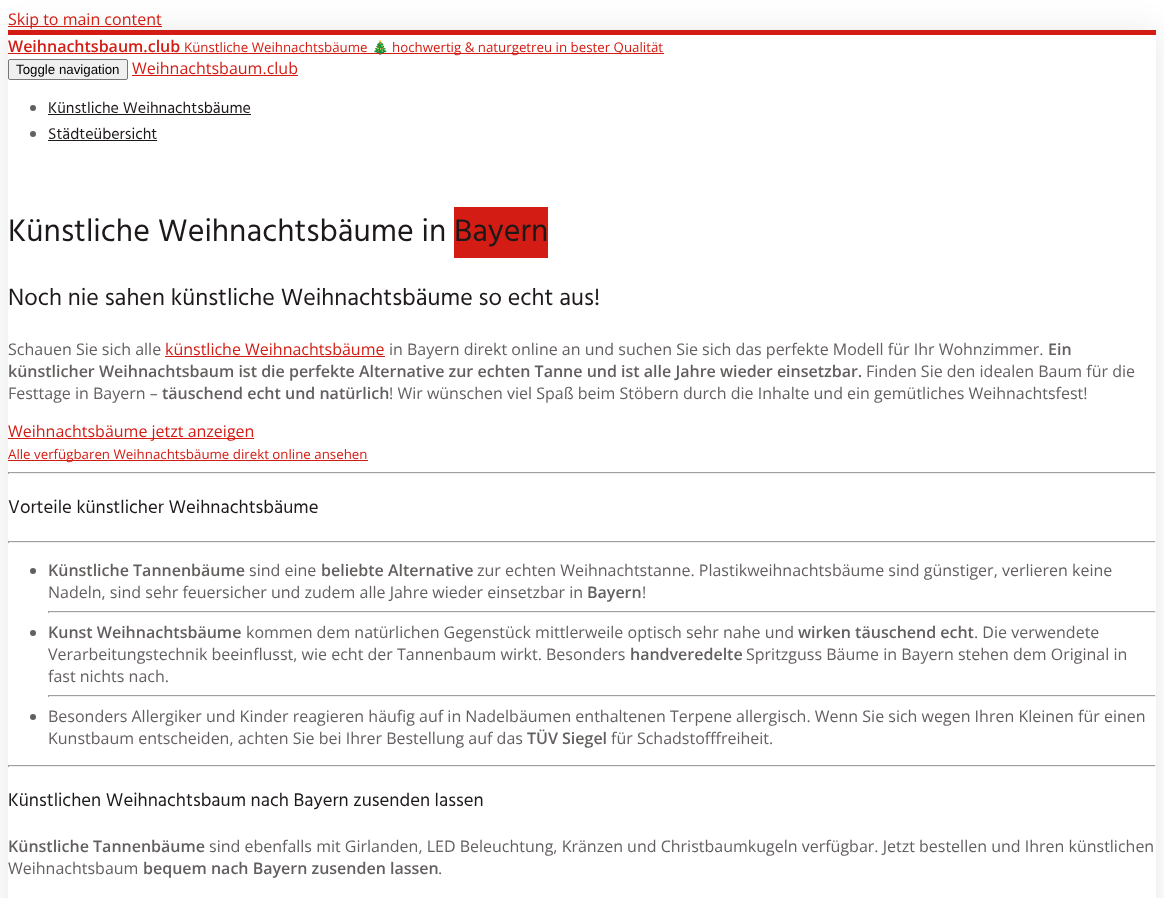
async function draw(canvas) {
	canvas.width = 1164;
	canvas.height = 898;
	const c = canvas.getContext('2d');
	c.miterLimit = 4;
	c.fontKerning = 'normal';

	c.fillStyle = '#fff';
	c.fillRect(0, 0, 1164, 898);
	c.save();
	c.beginPath();
	c.moveTo(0, 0);
	c.lineTo(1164, 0);
	c.lineTo(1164, 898);
	c.lineTo(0, 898);
	c.closePath();
	c.moveTo(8, 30);
	c.lineTo(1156, 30);
	c.lineTo(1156, 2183);
	c.lineTo(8, 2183);
	c.closePath();
	c.clip('evenodd');
	c.fillStyle = '#1e19191a';
	c.filter = 'blur(15px)';
	c.beginPath();
	c.rect(8, 30, 1148, 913);
	c.fill();
	c.filter = 'none';
	c.restore();
	c.fillStyle = '#d31c13';
	c.fillRect(8, 26, 154, 1);
	c.font = '16px Open Sans';
	c.fillText('Skip to main content', 8, 25);
	c.fillRect(8, 30, 1148, 5);
	c.font = '600 16px Open Sans';
	c.fillText('Weihnachtsbaum.club', 8, 52);
	c.font = '13.3px Open Sans';
	c.fillText('Künstliche Weihnachtsbäume', 184, 52);
	c.fillRect(8, 53, 656, 1);
	c.font = '13.3px Noto Color Emoji';
	c.fillText('🎄', 372, 52);
	c.font = '13.3px Open Sans';
	c.fillText('hochwertig & naturgetreu in bester Qualität', 392, 52);
	c.fillStyle = '#efefef';
	c.beginPath();
	c.roundRect(8.5, 59.5, 119, 20, 1.5);
	c.fill();
	c.strokeStyle = '#767676';
	c.stroke();
	c.font = '13.3px Liberation Sans';
	c.fillStyle = '#000';
	c.fillText('Toggle navigation', 16, 74);
	c.font = '16px Open Sans';
	c.fillStyle = '#d31c13';
	c.fillText('Weihnachtsbaum.club', 132, 74);
	c.fillRect(132, 75, 166, 1);
	c.fillStyle = '#645f5f';
	c.beginPath();
	c.arc(33, 108, 3, 0, 2 * Math.PI);
	c.fill();
	c.font = '16px Hind';
	c.fillStyle = '#1e1919';
	c.fillText('Künstliche Weihnachtsbäume', 48, 113);
	c.fillRect(48, 114, 203, 1);
	c.fillStyle = '#645f5f';
	c.beginPath();
	c.arc(33, 134, 3, 0, 2 * Math.PI);
	c.fill();
	c.fillStyle = '#1e1919';
	c.fillText('Städteübersicht', 48, 139);
	c.fillRect(48, 140, 109, 1);
	c.font = '32px Hind';
	c.fillText('Künstliche Weihnachtsbäume in', 8, 241);
	c.fillStyle = '#d31c13';
	c.fillRect(454, 207, 94, 51);
	c.fillStyle = '#1e1919';
	c.fillText('Bayern', 454, 241);
	c.font = '24px Hind';
	c.fillText('Noch nie sahen künstliche Weihnachtsbäume so echt aus!', 8, 305);
	c.font = '16px Open Sans';
	c.fillStyle = '#645f5f';
	c.fillText('Schauen Sie sich alle', 8, 355);
	c.fillStyle = '#d31c13';
	c.fillText('künstliche Weihnachtsbäume', 165, 355);
	c.fillRect(165, 356, 220, 1);
	c.fillStyle = '#645f5f';
	c.fillText('in Bayern direkt online an und suchen Sie sich das perfekte Modell für Ihr Wohnzimmer.', 389, 355);
	c.font = '600 16px Open Sans';
	c.fillText('Ein', 1048, 355);
	c.fillText('künstlicher Weihnachtsbaum ist die perfekte Alternative zur echten Tanne und ist alle Jahre wieder einsetzbar.', 8, 377);
	c.font = '16px Open Sans';
	c.fillText('Finden Sie den idealen Baum für die', 866, 377);
	c.fillText('Festtage in Bayern –', 8, 399);
	c.font = '600 16px Open Sans';
	c.fillText('täuschend echt und natürlich', 162, 399);
	c.font = '16px Open Sans';
	c.fillText('! Wir wünschen viel Spaß beim Stöbern durch die Inhalte und ein gemütliches Weihnachtsfest!', 389, 399);
	c.fillStyle = '#d31c13';
	c.fillRect(8, 438, 246, 1);
	c.fillText('Weihnachtsbäume jetzt anzeigen', 8, 437);
	c.fillRect(8, 460, 360, 1);
	c.font = '13.3px Open Sans';
	c.fillText('Alle verfügbaren Weihnachtsbäume direkt online ansehen', 8, 459);
	for (const [x, y, w, h, color] of [
		[8, 472, 1148, 1, '#9f9f9f'],
		[1155, 472, 1, 2, '#efefef'],
		[8, 473, 1148, 1, '#efefef'],
		[8, 472, 1, 2, '#9f9f9f'],
	]) {
		c.fillStyle = color;
		c.fillRect(x, y, w, h);
	}
	c.font = '18.75px Hind';
	c.fillStyle = '#1e1919';
	c.fillText('Vorteile künstlicher Weihnachtsbäume', 8, 513);
	for (const [x, y, w, h, color] of [
		[8, 541, 1148, 1, '#9f9f9f'],
		[1155, 541, 1, 2, '#efefef'],
		[8, 542, 1148, 1, '#efefef'],
		[8, 541, 1, 2, '#9f9f9f'],
	]) {
		c.fillStyle = color;
		c.fillRect(x, y, w, h);
	}
	c.fillStyle = '#645f5f';
	c.beginPath();
	c.arc(33, 571, 3, 0, 2 * Math.PI);
	c.fill();
	c.font = '600 16px Open Sans';
	c.fillText('Künstliche Tannenbäume', 48, 576);
	c.font = '16px Open Sans';
	c.fillText('sind eine', 249, 576);
	c.font = '600 16px Open Sans';
	c.fillText('beliebte Alternative', 321, 576);
	c.font = '16px Open Sans';
	c.fillText('zur echten Weihnachtstanne. Plastikweihnachtsbäume sind günstiger, verlieren keine', 477, 576);
	c.fillText('Nadeln, sind sehr feuersicher und zudem alle Jahre wieder einsetzbar in', 48, 598);
	c.font = '600 16px Open Sans';
	c.fillText('Bayern', 587, 598);
	c.font = '16px Open Sans';
	c.fillText('!', 642, 598);
	for (const [x, y, w, h, color] of [
		[48, 611, 1108, 1, '#9f9f9f'],
		[1155, 611, 1, 2, '#efefef'],
		[48, 612, 1108, 1, '#efefef'],
		[48, 611, 1, 2, '#9f9f9f'],
	]) {
		c.fillStyle = color;
		c.fillRect(x, y, w, h);
	}
	c.fillStyle = '#645f5f';
	c.beginPath();
	c.arc(33, 633, 3, 0, 2 * Math.PI);
	c.fill();
	c.font = '600 16px Open Sans';
	c.fillText('Kunst Weihnachtsbäume', 48, 638);
	c.font = '16px Open Sans';
	c.fillText('kommen dem natürlichen Gegenstück mittlerweile optisch sehr nahe und', 246, 638);
	c.font = '600 16px Open Sans';
	c.fillText('wirken täuschend echt', 798, 638);
	c.font = '16px Open Sans';
	c.fillText('. Die verwendete', 974, 638);
	c.fillText('Verarbeitungstechnik beeinflusst, wie echt der Tannenbaum wirkt. Besonders', 48, 660);
	c.font = '600 16px Open Sans';
	c.fillText('handveredelte', 630, 660);
	c.font = '16px Open Sans';
	c.fillText('Spritzguss Bäume in Bayern stehen dem Original in', 746, 660);
	c.fillText('fast nichts nach.', 48, 682);
	for (const [x, y, w, h, color] of [
		[48, 695, 1108, 1, '#9f9f9f'],
		[1155, 695, 1, 2, '#efefef'],
		[48, 696, 1108, 1, '#efefef'],
		[48, 695, 1, 2, '#9f9f9f'],
	]) {
		c.fillStyle = color;
		c.fillRect(x, y, w, h);
	}
	c.fillStyle = '#645f5f';
	c.beginPath();
	c.arc(33, 717, 3, 0, 2 * Math.PI);
	c.fill();
	c.fillText('Besonders Allergiker und Kinder reagieren häufig auf in Nadelbäumen enthaltenen Terpene allergisch. Wenn Sie sich wegen Ihren Kleinen für einen', 48, 722);
	c.fillText('Kunstbaum entscheiden, achten Sie bei Ihrer Bestellung auf das', 48, 744);
	c.font = '600 16px Open Sans';
	c.fillText('TÜV Siegel', 527, 744);
	c.font = '16px Open Sans';
	c.fillText('für Schadstofffreiheit.', 611, 744);
	for (const [x, y, w, h, color] of [
		[8, 765, 1148, 1, '#9f9f9f'],
		[1155, 765, 1, 2, '#efefef'],
		[8, 766, 1148, 1, '#efefef'],
		[8, 765, 1, 2, '#9f9f9f'],
	]) {
		c.fillStyle = color;
		c.fillRect(x, y, w, h);
	}
	c.font = '18.75px Hind';
	c.fillStyle = '#1e1919';
	c.fillText('Künstlichen Weihnachtsbaum nach Bayern zusenden lassen', 8, 806);
	c.font = '600 16px Open Sans';
	c.fillStyle = '#645f5f';
	c.fillText('Künstliche Tannenbäume', 8, 852);
	c.font = '16px Open Sans';
	c.fillText('sind ebenfalls mit Girlanden, LED Beleuchtung, Kränzen und Christbaumkugeln verfügbar. Jetzt bestellen und Ihren künstlichen', 209, 852);
	c.fillText('Weihnachtsbaum', 8, 874);
	c.font = '600 16px Open Sans';
	c.fillText('bequem nach Bayern zusenden lassen', 143, 874);
	c.font = '16px Open Sans';
	c.fillText('.', 438, 874);
}

draw(document.querySelector('canvas'));
